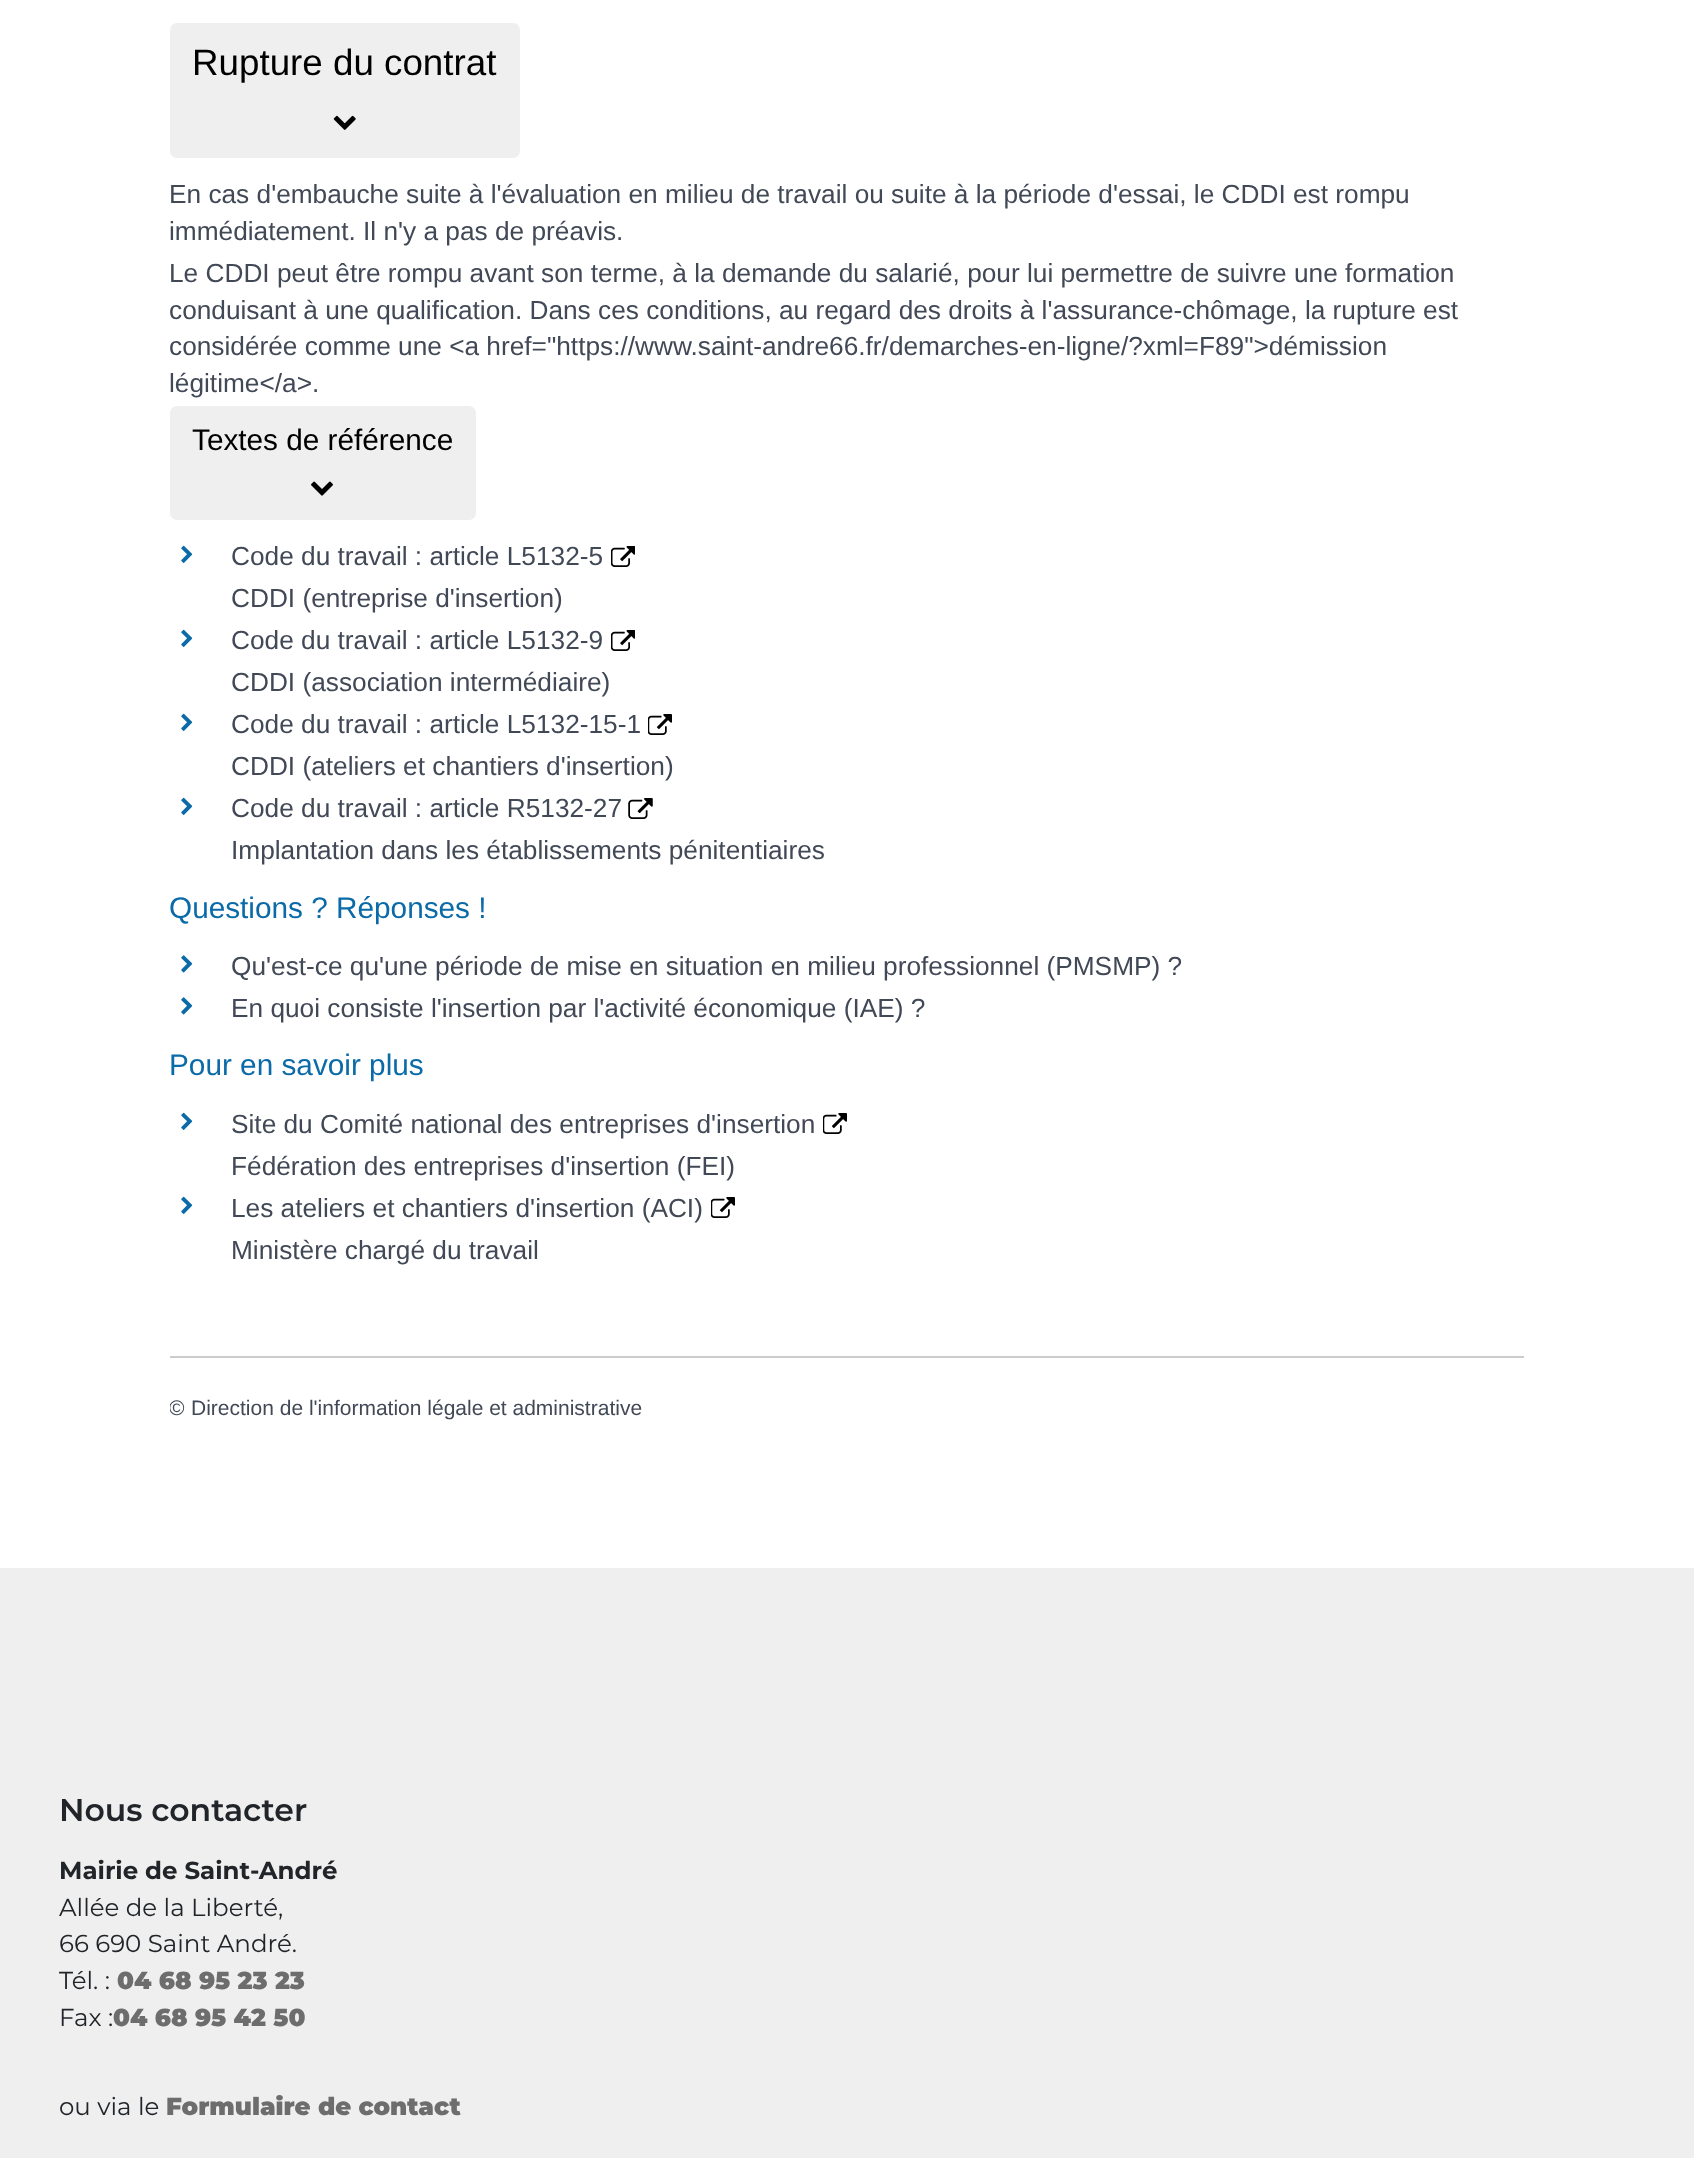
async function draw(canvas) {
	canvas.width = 1694;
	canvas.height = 2158;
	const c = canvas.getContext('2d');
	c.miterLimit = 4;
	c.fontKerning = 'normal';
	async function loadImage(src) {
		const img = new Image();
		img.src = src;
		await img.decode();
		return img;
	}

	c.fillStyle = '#fff';
	c.fillRect(0, 0, 1694, 2158);
	c.fillStyle = '#efefef';
	c.beginPath();
	c.roundRect(170, 23, 350, 135, 7);
	c.fill();
	c.font = '36.75px Liberation Sans';
	c.fillStyle = '#000';
	c.fillText('Rupture du contrat', 192, 75);
	c.drawImage(await loadImage('img1.png'), 333, 115, 23, 15);
	c.font = '26.25px Liberation Sans';
	c.fillStyle = '#414856';
	for (const [text, x, y] of [
		['En cas d\'embauche suite à l\'évaluation en milieu de travail ou suite à la période d\'essai, le CDDI est rompu', 169, 203],
		['immédiatement. Il n\'y a pas de préavis.', 169, 240],
		['Le CDDI peut être rompu avant son terme, à la demande du salarié, pour lui permettre de suivre une formation', 169, 282],
		['conduisant à une qualification. Dans ces conditions, au regard des droits à l\'assurance-chômage, la rupture est', 169, 319],
		['considérée comme une <a href="https://www.saint-andre66.fr/demarches-en-ligne/?xml=F89">démission', 169, 355],
		['légitime<\/a>.', 169, 392],
	]) {
		c.fillText(text, x, y);
	}
	c.fillStyle = '#efefef';
	c.beginPath();
	c.roundRect(170, 406, 306, 114, 7);
	c.fill();
	c.font = '29.75px Liberation Sans';
	c.fillStyle = '#000';
	c.fillText('Textes de référence', 192, 450);
	c.drawImage(await loadImage('img2.png'), 311, 481, 22, 15);
	c.drawImage(await loadImage('img3.png'), 181, 545, 12, 18);
	c.font = '26.25px Liberation Sans';
	c.fillStyle = '#414856';
	c.fillText('Code du travail : article L5132-5', 231, 565);
	c.drawImage(await loadImage('img4.png'), 611, 546, 24, 21);
	c.fillText('CDDI (entreprise d\'insertion)', 231, 607);
	c.drawImage(await loadImage('img3.png'), 181, 629, 12, 18);
	c.fillText('Code du travail : article L5132-9', 231, 649);
	c.drawImage(await loadImage('img4.png'), 611, 630, 24, 21);
	c.fillText('CDDI (association intermédiaire)', 231, 691);
	c.drawImage(await loadImage('img3.png'), 181, 713, 12, 18);
	c.fillText('Code du travail : article L5132-15-1', 231, 733);
	c.drawImage(await loadImage('img5.png'), 648, 714, 24, 21);
	c.fillText('CDDI (ateliers et chantiers d\'insertion)', 231, 775);
	c.drawImage(await loadImage('img3.png'), 181, 797, 12, 18);
	c.fillText('Code du travail : article R5132-27', 231, 817);
	c.drawImage(await loadImage('img6.png'), 628, 798, 25, 21);
	c.fillText('Implantation dans les établissements pénitentiaires', 231, 859);
	c.font = '29.75px Liberation Sans';
	c.fillStyle = '#0b6ba8';
	c.fillText('Questions ? Réponses !', 169, 918);
	c.drawImage(await loadImage('img7.png'), 181, 955, 12, 18);
	c.font = '26.25px Liberation Sans';
	c.fillStyle = '#414856';
	c.fillText('Qu\'est-ce qu\'une période de mise en situation en milieu professionnel (PMSMP) ?', 231, 975);
	c.drawImage(await loadImage('img7.png'), 181, 997, 12, 18);
	c.fillText('En quoi consiste l\'insertion par l\'activité économique (IAE) ?', 231, 1017);
	c.font = '29.75px Liberation Sans';
	c.fillStyle = '#0b6ba8';
	c.fillText('Pour en savoir plus', 169, 1075);
	c.drawImage(await loadImage('img3.png'), 181, 1112, 12, 18);
	c.font = '26.25px Liberation Sans';
	c.fillStyle = '#414856';
	c.fillText('Site du Comité national des entreprises d\'insertion', 231, 1133);
	c.drawImage(await loadImage('img5.png'), 823, 1113, 24, 21);
	c.fillText('Fédération des entreprises d\'insertion (FEI)', 231, 1175);
	c.drawImage(await loadImage('img3.png'), 181, 1196, 12, 18);
	c.fillText('Les ateliers et chantiers d\'insertion (ACI)', 231, 1217);
	c.drawImage(await loadImage('img5.png'), 711, 1197, 24, 21);
	c.fillText('Ministère chargé du travail', 231, 1259);
	c.fillStyle = '#ccc';
	c.fillRect(170, 1356, 1354, 2);
	c.save();
	c.beginPath();
	c.rect(170, 0, 1354, 1428);
	c.clip();
	c.font = '21px Liberation Sans';
	c.fillStyle = '#414856';
	c.fillText('©', 169, 1415);
	c.restore();
	c.font = '21px Liberation Sans';
	c.fillStyle = '#414856';
	c.fillText('Direction de l\'information légale et administrative', 191, 1415);
	c.fillStyle = '#efefef';
	c.fillRect(0, 1568, 1694, 590);
	c.font = '600 31.5px Montserrat';
	c.fillStyle = '#212529';
	c.fillText('Nous contacter', 59, 1821);
	c.font = 'bold 24.5px Montserrat';
	c.fillText('Mairie de Saint-André', 59, 1879);
	c.font = '24.5px Montserrat';
	for (const [text, x, y] of [
		['Allée de la Liberté,', 59, 1916],
		['66 690 Saint André.', 59, 1952],
		['Tél. :', 59, 1989],
	]) {
		c.fillText(text, x, y);
	}
	c.font = '900 24.5px Montserrat';
	c.fillStyle = '#6d6d6d';
	c.fillText('04 68 95 23 23', 117, 1989);
	c.font = '24.5px Montserrat';
	c.fillStyle = '#212529';
	c.fillText('Fax :', 59, 2026);
	c.font = '900 24.5px Montserrat';
	c.fillStyle = '#6d6d6d';
	c.fillText('04 68 95 42 50', 113, 2026);
	c.font = '24.5px Montserrat';
	c.fillStyle = '#212529';
	c.fillText('ou via le', 59, 2115);
	c.font = '900 24.5px Montserrat';
	c.fillStyle = '#6d6d6d';
	c.fillText('Formulaire de contact', 166, 2115);
}

draw(document.querySelector('canvas'));
